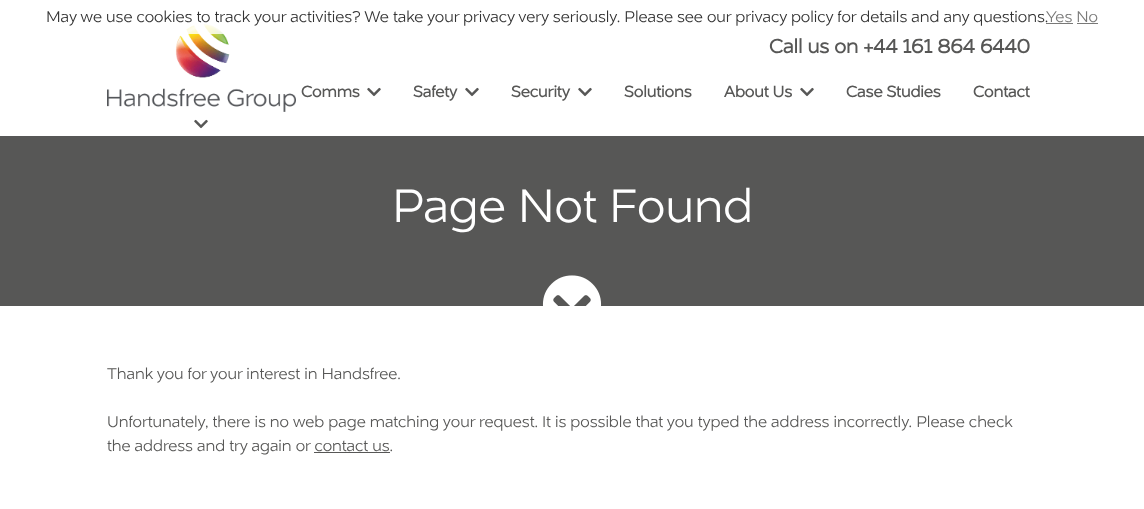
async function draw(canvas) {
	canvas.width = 1144;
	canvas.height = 509;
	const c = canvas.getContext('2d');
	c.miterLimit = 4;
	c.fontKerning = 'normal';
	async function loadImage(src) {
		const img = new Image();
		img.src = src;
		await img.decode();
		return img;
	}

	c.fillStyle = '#fff';
	c.fillRect(0, 0, 1144, 509);
	c.drawImage(await loadImage('img1.png'), 107, 24, 189, 88);
	c.fillStyle = '#ffffffcc';
	c.fillRect(186, 24, 38, 10);
	c.font = '300 16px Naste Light';
	c.fillStyle = '#333';
	c.fillText('May we use cookies to track your activities? We take your privacy very seriously. Please see our privacy policy for details and any questions.', 46, 22);
	c.fillStyle = '#797978';
	c.fillText('Yes No', 1046, 22);
	c.fillRect(1046, 23, 27, 1);
	c.fillRect(1077, 23, 21, 1);
	c.drawImage(await loadImage('img2.png'), 194, 119, 14, 10);
	c.font = 'bold 20px Naste Light';
	c.fillStyle = '#575756';
	c.fillText('Call us on +44 161 864 6440', 769, 53);
	c.font = 'bold 16px Naste Light';
	c.fillText('Comms', 301, 97);
	c.drawImage(await loadImage('img2.png'), 367, 87, 14, 10);
	c.fillText('Safety', 413, 97);
	c.drawImage(await loadImage('img2.png'), 465, 87, 14, 10);
	c.fillText('Security', 511, 97);
	c.drawImage(await loadImage('img2.png'), 578, 87, 14, 10);
	c.fillText('Solutions', 624, 97);
	c.fillText('About Us', 724, 97);
	c.drawImage(await loadImage('img2.png'), 800, 87, 14, 10);
	c.fillText('Case Studies', 846, 97);
	c.fillText('Contact', 973, 97);
	c.fillRect(0, 136, 1144, 170);
	c.font = '300 48px Naste Light';
	c.fillStyle = '#fff';
	c.fillText('Page Not Found', 392, 222);
	c.drawImage(await loadImage('img3.png'), 542, 275, 60, 31);
	c.font = '300 16px Naste Light';
	c.fillStyle = '#575756';
	for (const [text, x, y] of [
		['Thank you for your interest in Handsfree.', 107, 379],
		['Unfortunately, there is no web page matching your request. It is possible that you typed the address incorrectly. Please check', 107, 427],
		['the address and try again or contact us.', 107, 451],
	]) {
		c.fillText(text, x, y);
	}
	c.fillRect(314, 452, 76, 1);
}

draw(document.querySelector('canvas'));
